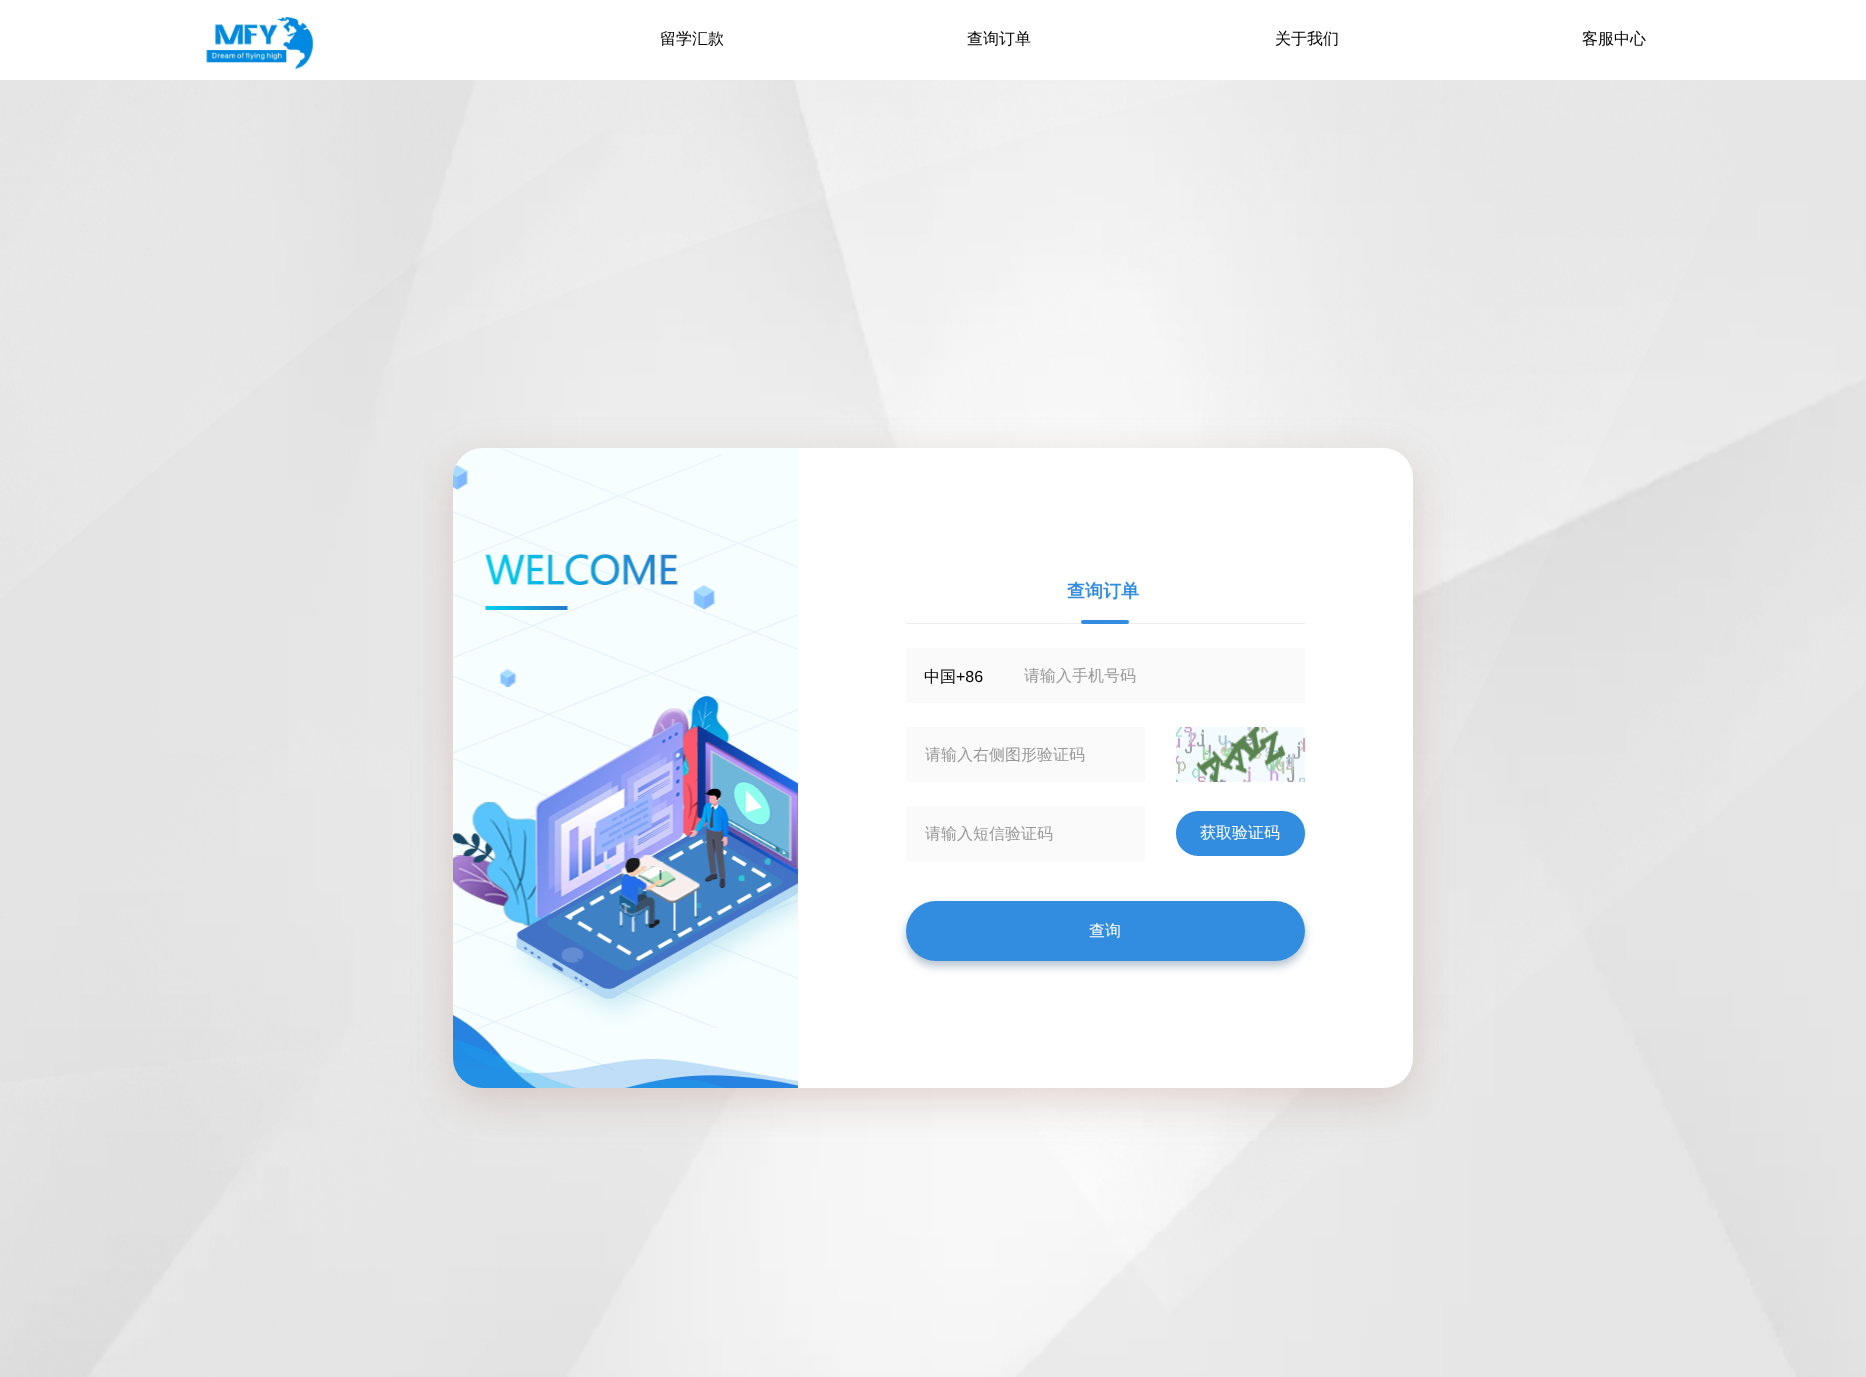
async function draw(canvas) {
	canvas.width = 1866;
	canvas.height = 1377;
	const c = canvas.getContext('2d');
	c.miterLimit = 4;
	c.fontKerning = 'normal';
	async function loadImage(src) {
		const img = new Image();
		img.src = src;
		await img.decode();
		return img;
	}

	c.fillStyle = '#fff';
	c.fillRect(0, 0, 1866, 1377);
	c.drawImage(await loadImage('img1.png'), 205, 16, 109, 54);
	c.font = '500 16px WenQuanYi Zen Hei';
	c.fillStyle = '#000';
	for (const [text, x, y] of [
		['留学汇款', 660, 44],
		['查询订单', 967, 44],
		['关于我们', 1275, 44],
		['客服中心', 1582, 44],
	]) {
		c.fillText(text, x, y);
	}
	c.drawImage(await loadImage('img2.png'), 0, 80, 1866, 1297);
	c.fillStyle = '#a77a6a47';
	c.filter = 'blur(20px)';
	c.beginPath();
	c.roundRect(453, 461, 960, 640, 30);
	c.fill();
	c.filter = 'none';
	c.drawImage(await loadImage('img3.png'), 453, 448, 345, 640);
	c.fillStyle = '#fff';
	c.beginPath();
	c.roundRect(798, 448, 615, 640, [0, 30, 30, 0]);
	c.fill();
	c.fillStyle = '#ededed';
	c.fillRect(906, 623, 399, 1);
	c.font = 'bold 18px WenQuanYi Zen Hei';
	c.fillStyle = '#328cdf';
	c.fillText('查询订单', 1067, 597);
	c.beginPath();
	c.roundRect(1081, 620, 48, 4, 2);
	c.fill();
	c.fillStyle = '#fafafa';
	c.fillRect(906, 648, 399, 55);
	c.font = '500 16px WenQuanYi Zen Hei';
	c.fillStyle = '#000';
	c.fillText('中国', 924, 682);
	c.font = '16px Liberation Sans';
	c.fillText('+86', 956, 682);
	c.font = '500 16px WenQuanYi Zen Hei';
	c.fillStyle = '#999';
	c.fillText('请输入手机号码', 1024, 681);
	c.fillStyle = '#fafafa';
	c.fillRect(906, 727, 239, 55);
	c.fillStyle = '#999';
	c.fillText('请输入右侧图形验证码', 925, 760);
	c.drawImage(await loadImage('img4.png'), 1176, 727, 129, 55);
	c.fillStyle = '#fafafa';
	c.fillRect(906, 806, 239, 55);
	c.fillStyle = '#999';
	c.fillText('请输入短信验证码', 925, 839);
	c.fillStyle = '#328cdf';
	c.beginPath();
	c.roundRect(1176, 811, 129, 45, 22);
	c.fill();
	c.fillStyle = '#fff';
	c.fillText('获取验证码', 1200, 838);
	c.fillStyle = '#00315e4d';
	c.filter = 'blur(5px)';
	c.beginPath();
	c.roundRect(906, 906, 399, 60, 30);
	c.fill();
	c.filter = 'none';
	c.fillStyle = '#328cdf';
	c.beginPath();
	c.roundRect(906, 901, 399, 60, 30);
	c.fill();
	c.fillStyle = '#fff';
	c.fillText('查询', 1089, 936);
}

draw(document.querySelector('canvas'));
